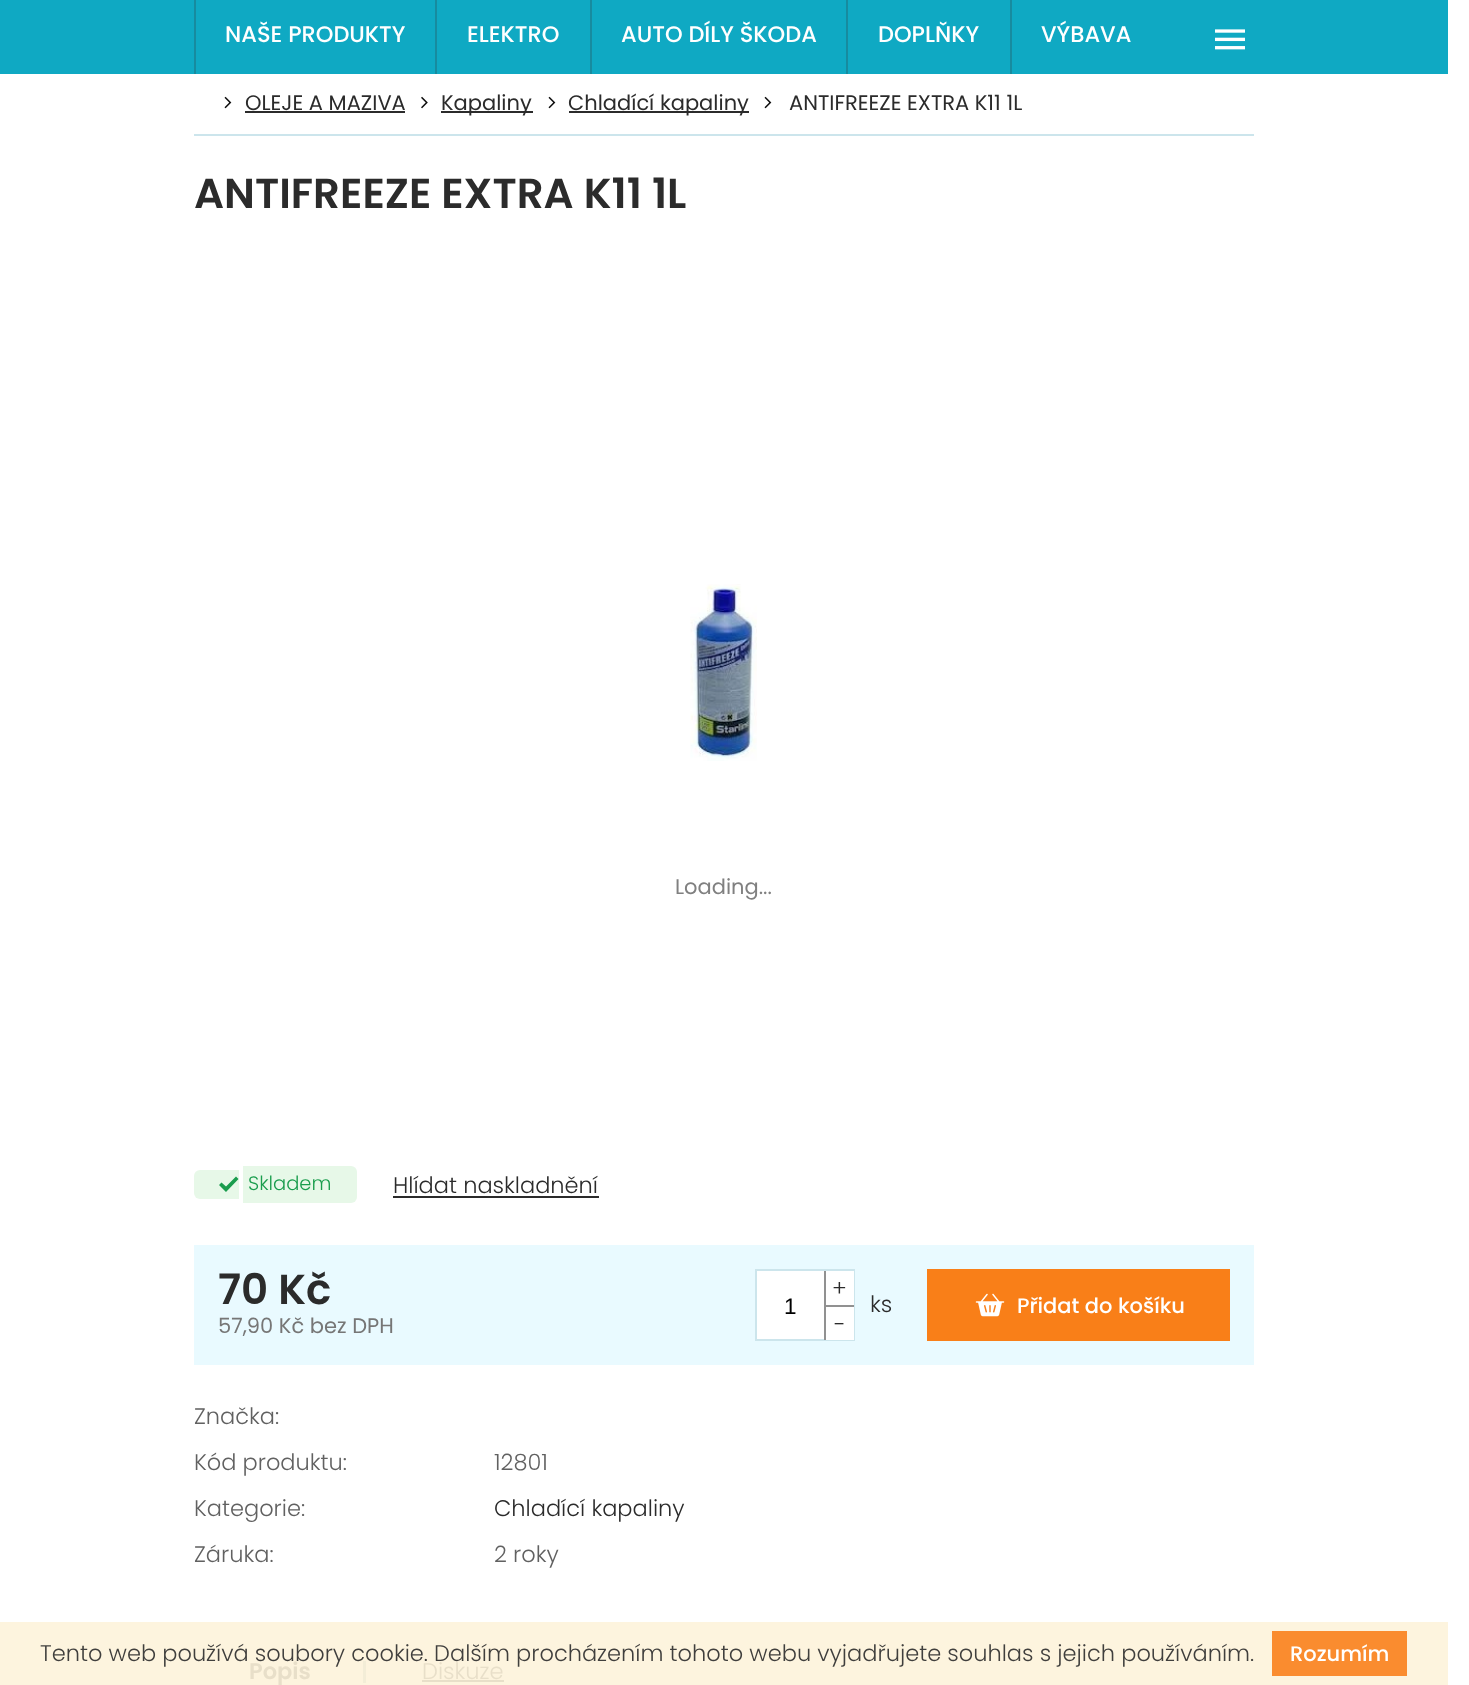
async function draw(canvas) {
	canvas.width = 1469;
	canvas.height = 1685;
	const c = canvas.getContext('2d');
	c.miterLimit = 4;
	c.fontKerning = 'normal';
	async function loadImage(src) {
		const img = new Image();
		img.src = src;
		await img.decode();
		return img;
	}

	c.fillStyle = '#fff';
	c.fillRect(0, 0, 1469, 1685);
	for (const [x, y, w, h, color] of [
		[0, 1622, 1448, 63, '#fdf4de'],
		[0, 0, 1448, 74, '#0fa9c3'],
		[194, 0, 2, 74, '#178b9f'],
	]) {
		c.fillStyle = color;
		c.fillRect(x, y, w, h);
	}
	c.font = '500 22.5px Poppins';
	c.fillStyle = '#fff';
	c.fillText('NAŠE PRODUKTY', 225, 42);
	c.fillStyle = '#178b9f';
	c.fillRect(435, 0, 2, 74);
	c.fillStyle = '#fff';
	c.fillText('ELEKTRO', 467, 42);
	c.fillStyle = '#178b9f';
	c.fillRect(590, 0, 2, 74);
	c.fillStyle = '#fff';
	c.fillText('AUTO DÍLY ŠKODA', 621, 42);
	c.fillStyle = '#178b9f';
	c.fillRect(846, 0, 2, 74);
	c.fillStyle = '#fff';
	c.fillText('DOPLŇKY', 878, 42);
	c.fillStyle = '#178b9f';
	c.fillRect(1010, 0, 2, 74);
	c.fillStyle = '#fff';
	c.fillText('VÝBAVA', 1041, 42);
	c.drawImage(await loadImage('img1.png'), 1215, 29, 30, 21);
	c.fillStyle = '#cce5ec';
	c.fillRect(194, 134, 1060, 2);
	c.drawImage(await loadImage('img2.png'), 224, 96, 8, 13);
	c.font = '21px Poppins';
	c.fillStyle = '#2b2b2b';
	c.fillText('OLEJE A MAZIVA', 245, 110);
	c.fillRect(245, 111, 160, 2);
	c.drawImage(await loadImage('img3.png'), 421, 96, 7, 13);
	c.fillRect(441, 111, 92, 2);
	c.fillText('Kapaliny', 441, 110);
	c.drawImage(await loadImage('img2.png'), 548, 96, 8, 13);
	c.fillRect(569, 111, 180, 2);
	c.fillText('Chladící kapaliny', 568, 110);
	c.drawImage(await loadImage('img2.png'), 764, 96, 8, 13);
	c.fillText('ANTIFREEZE EXTRA K11 1L', 789, 110);
	c.font = '600 42px Poppins';
	c.fillText('ANTIFREEZE EXTRA K11 1L', 194, 208);
	c.drawImage(await loadImage('img4.png'), 690, 584, 67, 177);
	c.font = '21px Poppins';
	c.fillStyle = '#808080';
	c.fillText('Loading...', 675, 894);
	c.fillStyle = '#e7f8e8';
	c.beginPath();
	c.roundRect(243, 1166, 114, 37, [0, 6, 6, 0]);
	c.fill();
	c.font = '300 19.5px Poppins';
	c.fillStyle = '#1a9d4d';
	c.fillText('Skladem', 248, 1190);
	c.fillStyle = '#e7f8e8';
	c.beginPath();
	c.roundRect(194, 1170, 45, 29, [6, 0, 0, 6]);
	c.fill();
	c.fillStyle = '#1a9d4d';
	c.beginPath();
	c.moveTo(236, 1176.5);
	c.lineTo(226, 1186.5);
	c.lineTo(221.5, 1182.5);
	c.lineTo(219, 1185);
	c.lineTo(226, 1192);
	c.lineTo(238.5, 1179);
	c.closePath();
	c.fill();
	c.font = '300 22.5px Poppins';
	c.fillStyle = '#2b2b2b';
	c.fillText('Hlídat naskladnění', 393, 1193);
	c.fillRect(393, 1196, 206, 2);
	c.fillStyle = '#e9faff';
	c.fillRect(194, 1245, 1060, 120);
	c.font = '600 42px Poppins';
	c.fillStyle = '#2b2b2b';
	c.fillText('70 Kč', 218, 1304);
	c.font = '21px Poppins';
	c.fillStyle = '#767676';
	c.fillText('57,90 Kč bez DPH', 218, 1333);
	c.fillStyle = '#fff';
	c.fillRect(757, 1271, 67, 68);
	c.strokeStyle = '#cce5ec';
	c.lineWidth = 2;
	c.strokeRect(756, 1270, 98, 70);
	c.fillRect(826, 1271, 28, 34);
	c.fillStyle = '#919191';
	c.fillRect(824, 1271, 2, 34);
	c.font = '300 22.5px Poppins';
	c.fillStyle = '#2b2b2b';
	c.fillText('+', 832, 1296);
	c.font = '22.5px Liberation Sans';
	c.fillStyle = '#000';
	c.fillText('1', 784, 1314);
	for (const [x, y, w, h, color] of [
		[826, 1307, 28, 33, '#fff'],
		[824, 1305, 30, 2, '#919191'],
		[824, 1305, 2, 35, '#919191'],
	]) {
		c.fillStyle = color;
		c.fillRect(x, y, w, h);
	}
	c.font = '300 22.5px Poppins';
	c.fillStyle = '#2b2b2b';
	c.fillText('-', 834, 1332);
	c.fillText('ks', 870, 1312);
	c.fillStyle = '#f97f18';
	c.fillRect(927, 1269, 303, 72);
	c.drawImage(await loadImage('img5.png'), 975, 1293, 30, 24);
	c.font = '500 21px Poppins';
	c.fillStyle = '#fff';
	c.fillText('Přidat do košíku', 1017, 1313);
	c.font = '300 22.5px Poppins';
	c.fillStyle = '#616161';
	for (const [text, x, y] of [
		['Značka:', 194, 1424],
		['Kód produktu:', 194, 1470],
		['12801', 494, 1470],
		['Kategorie:', 194, 1516],
	]) {
		c.fillText(text, x, y);
	}
	c.fillStyle = '#2b2b2b';
	c.fillText('Chladící kapaliny', 494, 1516);
	c.fillStyle = '#616161';
	c.fillText('Záruka:', 194, 1562);
	c.fillText('2 roky', 494, 1562);
	c.font = '600 22.5px Poppins';
	c.fillStyle = '#e8dfc9';
	c.fillText('Popis', 249, 1679);
	c.fillStyle = '#f3edd7';
	c.fillRect(363, 1661, 3, 22);
	c.font = '300 22.5px Poppins';
	c.fillStyle = '#e8dfc9';
	c.fillText('Diskuze', 422, 1679);
	c.fillRect(422, 1680, 82, 2);
	c.fillStyle = '#403f3d';
	c.fillText('Tento web používá soubory cookie. Dalším procházením tohoto webu vyjadřujete souhlas s jejich používáním.', 40, 1661);
	c.fillStyle = '#fa8c2f';
	c.fillRect(1272, 1631, 135, 45);
	c.font = '500 21px Poppins';
	c.fillStyle = '#fff';
	c.fillText('Rozumím', 1290, 1661);
}

draw(document.querySelector('canvas'));
